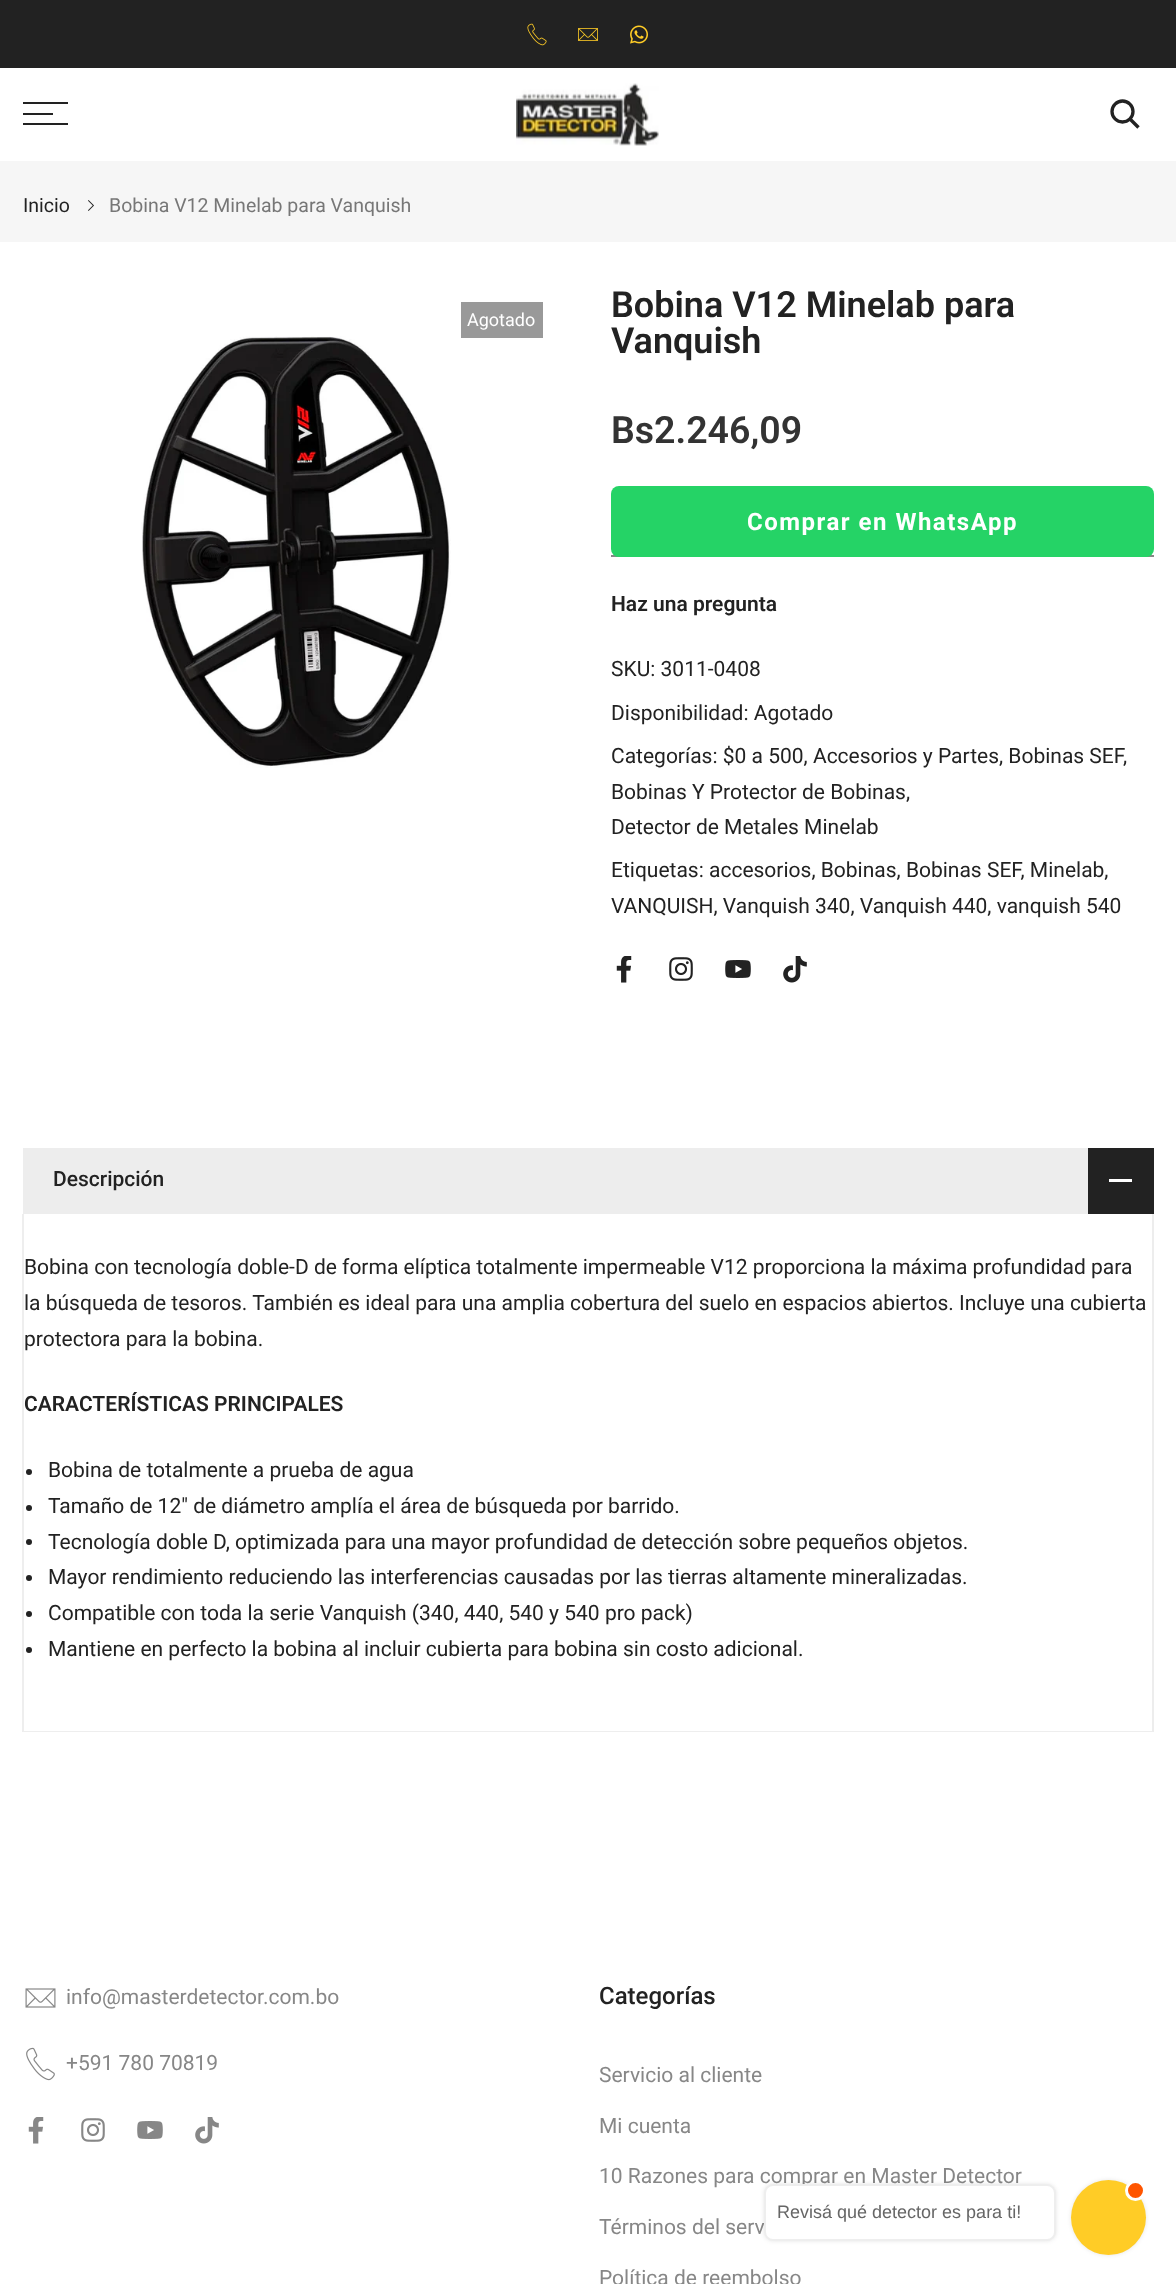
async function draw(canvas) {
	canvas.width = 1176;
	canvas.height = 2284;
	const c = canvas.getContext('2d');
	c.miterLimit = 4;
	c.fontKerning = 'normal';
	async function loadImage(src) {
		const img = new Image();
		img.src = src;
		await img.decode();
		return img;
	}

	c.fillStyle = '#fff';
	c.fillRect(0, 0, 1176, 2284);
	c.fillStyle = '#222';
	c.fillRect(0, 0, 1176, 68);
	c.drawImage(await loadImage('img1.png'), 527, 23, 20, 23);
	c.drawImage(await loadImage('img2.png'), 578, 28, 20, 13);
	c.drawImage(await loadImage('img3.png'), 630, 25, 18, 19);
	for (const [x, y, w, h, color] of [
		[23, 102, 45, 2, '#222'],
		[23, 113, 30, 2, '#222'],
		[23, 123, 45, 2, '#222'],
	]) {
		c.fillStyle = color;
		c.fillRect(x, y, w, h);
	}
	c.drawImage(await loadImage('img4.png'), 516, 83, 143, 63);
	c.beginPath();
	c.arc(1122.5, 111.5, 10.5, 0, 2 * Math.PI);
	c.strokeStyle = '#222';
	c.lineWidth = 3.3;
	c.stroke();
	c.beginPath();
	c.moveTo(1130, 119);
	c.lineTo(1138.5, 127.5);
	c.stroke();
	c.fillStyle = '#f6f6f6';
	c.fillRect(0, 161, 1176, 81);
	c.font = '19.5px Roboto';
	c.fillStyle = '#222';
	c.fillText('Inicio', 23, 212);
	c.drawImage(await loadImage('img5.png'), 88, 200, 6, 11);
	c.fillStyle = '#777';
	c.fillText('Bobina V12 Minelab para Vanquish', 109, 212);
	c.fillStyle = '#999';
	c.fillRect(461, 302, 82, 36);
	c.font = '18px Roboto';
	c.fillStyle = '#fff';
	c.fillText('Agotado', 467, 326);
	c.drawImage(await loadImage('img6.png'), 141, 336, 310, 432);
	c.font = '600 36px Roboto';
	c.fillStyle = '#222';
	c.fillText('Bobina V12 Minelab para', 611, 317);
	c.fillText('Vanquish', 611, 353);
	c.font = '600 37.5px Roboto';
	c.fillStyle = '#333';
	c.fillText('Bs2.246,09', 611, 443);
	c.fillStyle = '#878787';
	c.fillRect(611, 555, 543, 2);
	c.fillStyle = '#25d366';
	c.beginPath();
	c.roundRect(611, 486, 543, 71, 8);
	c.fill();
	c.letterSpacing = '1.5px';
	c.font = 'bold 24px Roboto';
	c.fillStyle = '#fff';
	c.fillText('Comprar en WhatsApp', 747, 530);
	c.letterSpacing = '0px';
	c.font = '600 21px Roboto';
	c.fillStyle = '#222';
	c.fillText('Haz una pregunta', 611, 611);
	c.font = '21px Roboto';
	for (const [text, x, y] of [
		['SKU: 3011-0408', 611, 676],
		['Disponibilidad: Agotado', 611, 720],
		['Categorías: $0 a 500, Accesorios y Partes, Bobinas SEF,', 611, 763],
		['Bobinas Y Protector de Bobinas,', 611, 799],
		['Detector de Metales Minelab', 611, 834],
		['Etiquetas: accesorios, Bobinas, Bobinas SEF, Minelab,', 611, 877],
		['VANQUISH, Vanquish 340, Vanquish 440, vanquish 540', 611, 913],
	]) {
		c.fillText(text, x, y);
	}
	c.drawImage(await loadImage('img7.png'), 616, 956, 16, 27);
	c.drawImage(await loadImage('img8.png'), 669, 957, 24, 24);
	c.drawImage(await loadImage('img9.png'), 725, 960, 26, 18);
	c.drawImage(await loadImage('img10.png'), 783, 956, 24, 27);
	c.fillStyle = '#ededed';
	c.fillRect(23, 1148, 1065, 66);
	c.font = '500 21px Roboto';
	c.fillStyle = '#222';
	c.fillText('Descripción', 53, 1186);
	c.fillRect(1088, 1148, 66, 66);
	c.fillStyle = '#fff';
	c.fillRect(1109, 1179, 23, 3);
	c.fillStyle = '#ededed';
	c.beginPath();
	c.moveTo(1154, 1214);
	c.lineTo(1154, 1732);
	c.lineTo(1152, 1731);
	c.lineTo(1152, 1214);
	c.closePath();
	c.fill();
	c.fillStyle = '#22222214';
	c.beginPath();
	c.moveTo(1154, 1732);
	c.lineTo(22, 1732);
	c.lineTo(24, 1731);
	c.lineTo(1152, 1731);
	c.closePath();
	c.fill();
	c.beginPath();
	c.moveTo(22, 1732);
	c.lineTo(22, 1214);
	c.lineTo(24, 1214);
	c.lineTo(24, 1731);
	c.closePath();
	c.fill();
	c.font = '21px Roboto';
	c.fillStyle = '#222';
	for (const [text, x, y] of [
		['Bobina con tecnología doble-D de forma elíptica totalmente impermeable V12 proporciona la máxima profundidad para', 24, 1274],
		['la búsqueda de tesoros. También es ideal para una amplia cobertura del suelo en espacios abiertos. Incluye una cubierta', 24, 1310],
		['protectora para la bobina.', 24, 1346],
	]) {
		c.fillText(text, x, y);
	}
	c.font = '600 21px Roboto';
	c.fillText('CARACTERÍSTICAS PRINCIPALES', 24, 1411);
	c.beginPath();
	c.arc(29, 1472, 3, 0, 2 * Math.PI);
	c.fill();
	c.font = '21px Roboto';
	c.fillText('Bobina de totalmente a prueba de agua', 48, 1477);
	c.beginPath();
	c.arc(29, 1508, 3, 0, 2 * Math.PI);
	c.fill();
	c.fillText('Tamaño de 12" de diámetro amplía el área de búsqueda por barrido.', 48, 1513);
	c.beginPath();
	c.arc(29, 1542, 3, 0, 2 * Math.PI);
	c.fill();
	c.fillText('Tecnología doble D, optimizada para una mayor profundidad de detección sobre pequeños objetos.', 48, 1549);
	c.beginPath();
	c.arc(29, 1578, 3, 0, 2 * Math.PI);
	c.fill();
	c.fillText('Mayor rendimiento reduciendo las interferencias causadas por las tierras altamente mineralizadas.', 48, 1584);
	c.beginPath();
	c.arc(29, 1614, 3, 0, 2 * Math.PI);
	c.fill();
	c.fillText('Compatible con toda la serie Vanquish (340, 440, 540 y 540 pro pack)', 48, 1620);
	c.beginPath();
	c.arc(29, 1650, 3, 0, 2 * Math.PI);
	c.fill();
	c.fillText('Mantiene en perfecto la bobina al incluir cubierta para bobina sin costo adicional.', 48, 1656);
	c.drawImage(await loadImage('img11.png'), 25, 1988, 31, 20);
	c.fillStyle = '#878787';
	c.fillText('info@masterdetector.com.bo', 66, 2004);
	c.drawImage(await loadImage('img12.png'), 26, 2047, 29, 34);
	c.fillText('+591 780 70819', 66, 2070);
	c.drawImage(await loadImage('img13.png'), 28, 2117, 16, 27);
	c.drawImage(await loadImage('img14.png'), 81, 2118, 24, 24);
	c.drawImage(await loadImage('img15.png'), 137, 2121, 26, 18);
	c.drawImage(await loadImage('img16.png'), 195, 2117, 24, 27);
	c.font = '500 24px Roboto';
	c.fillStyle = '#222';
	c.fillText('Categorías', 599, 2004);
	c.font = '21px Roboto';
	c.fillStyle = '#878787';
	for (const [text, x, y] of [
		['Servicio al cliente', 599, 2082],
		['Mi cuenta', 599, 2133],
		['10 Razones para comprar en Master Detector', 599, 2183],
		['Términos del serv', 599, 2234],
		['Política de reembolso', 599, 2285],
	]) {
		c.fillText(text, x, y);
	}
	c.fillStyle = '#0000001a';
	c.filter = 'blur(2px)';
	c.beginPath();
	c.roundRect(764, 2184, 292, 57, 9);
	c.fill();
	c.filter = 'none';
	c.fillStyle = '#fff';
	c.beginPath();
	c.roundRect(765, 2185, 290, 55, 8);
	c.fill();
	c.strokeStyle = '#eee';
	c.lineWidth = 2;
	c.stroke();
	c.font = '18px Liberation Sans';
	c.fillStyle = '#666';
	c.fillText('Revisá qué detector es para ti!', 777, 2218);
	c.fillStyle = '#0000001a';
	c.filter = 'blur(2px)';
	c.beginPath();
	c.roundRect(1071, 2180, 75, 75, 37.5);
	c.fill();
	c.filter = 'none';
	c.fillStyle = '#ffcc26';
	c.beginPath();
	c.arc(1108.5, 2217.5, 37.5, 0, 2 * Math.PI);
	c.fill();
	c.fillStyle = '#f50';
	c.beginPath();
	c.arc(1135.5, 2190.5, 9, 0, 2 * Math.PI);
	c.fill();
	c.strokeStyle = '#fff';
	c.lineWidth = 3;
	c.stroke();
}

draw(document.querySelector('canvas'));
